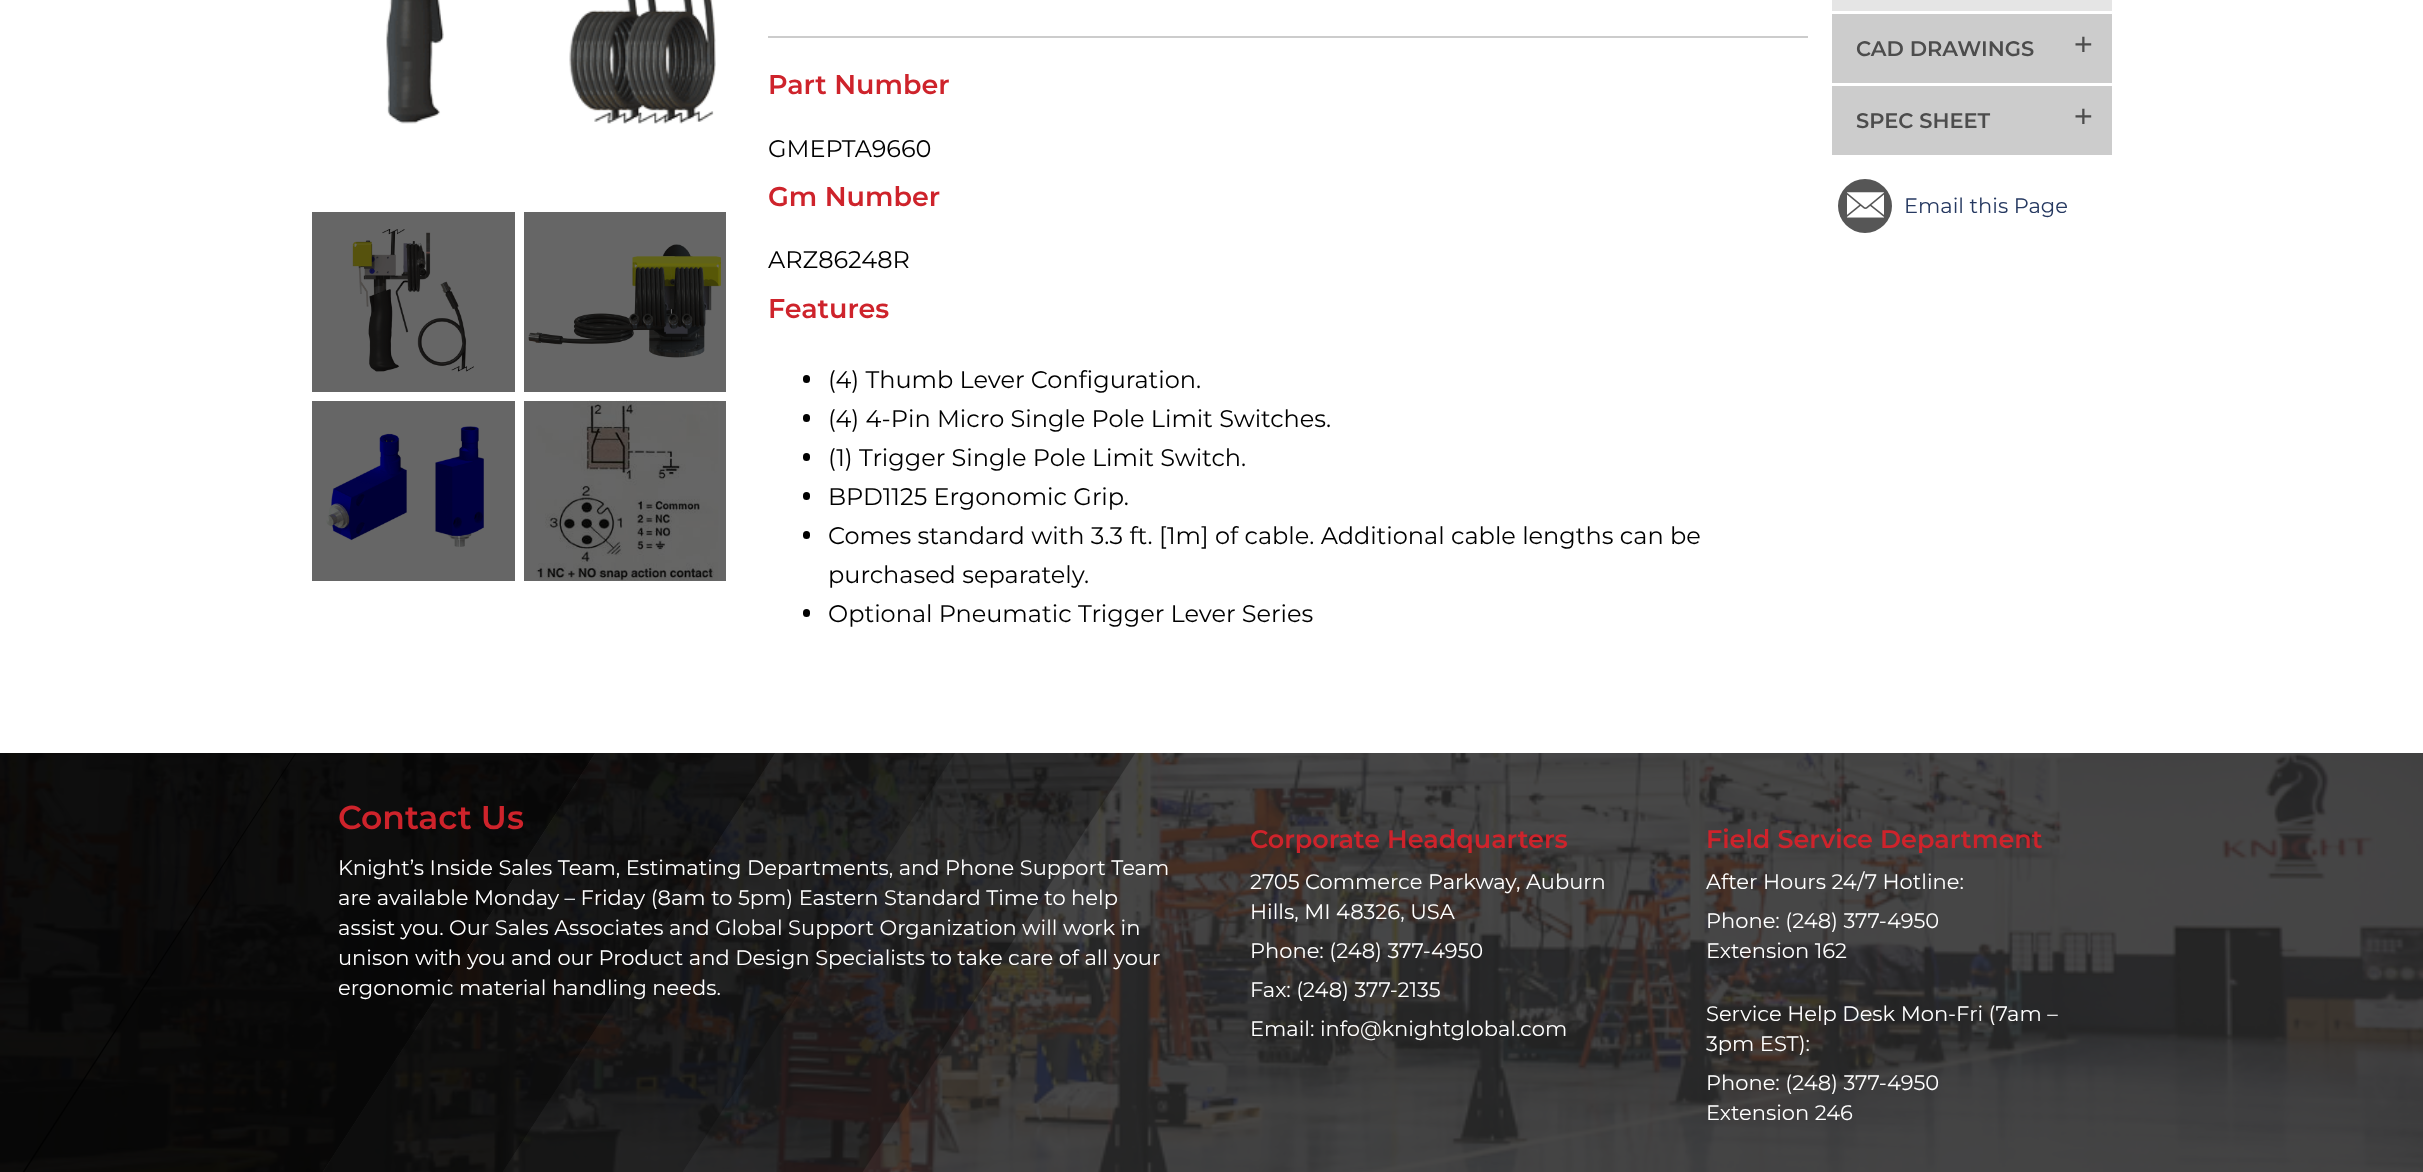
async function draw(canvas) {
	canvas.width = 2423;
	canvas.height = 1172;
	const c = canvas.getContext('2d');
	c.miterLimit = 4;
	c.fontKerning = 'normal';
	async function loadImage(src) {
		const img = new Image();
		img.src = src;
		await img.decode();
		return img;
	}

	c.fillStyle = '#fff';
	c.fillRect(0, 0, 2423, 1172);
	for (const [x, y, w, h, color] of [
		[524, 401, 202, 180, '#666'],
		[312, 401, 203, 180, '#666'],
		[524, 212, 202, 180, '#666'],
		[312, 212, 203, 180, '#666'],
	]) {
		c.fillStyle = color;
		c.fillRect(x, y, w, h);
	}
	c.drawImage(await loadImage('img1.png'), 386, 0, 330, 124);
	c.drawImage(await loadImage('img2.png'), 352, 229, 122, 143);
	c.drawImage(await loadImage('img3.png'), 528, 244, 193, 114);
	c.drawImage(await loadImage('img4.png'), 326, 426, 158, 121);
	c.drawImage(await loadImage('img5.png'), 536, 400, 183, 181);
	c.fillStyle = '#ccc';
	c.fillRect(768, 36, 1040, 2);
	c.font = '600 27px Montserrat';
	c.fillStyle = '#ce232b';
	c.fillText('Part Number', 768, 94);
	c.font = '24px Montserrat';
	c.fillStyle = '#000';
	c.fillText('GMEPTA9660', 768, 157);
	c.font = '600 27px Montserrat';
	c.fillStyle = '#ce232b';
	c.fillText('Gm Number', 768, 206);
	c.font = '24px Montserrat';
	c.fillStyle = '#000';
	c.fillText('ARZ86248R', 768, 268);
	c.font = '600 27px Montserrat';
	c.fillStyle = '#ce232b';
	c.fillText('Features', 768, 318);
	c.fillStyle = '#000';
	c.beginPath();
	c.roundRect(803, 375, 7, 8, 3.5);
	c.fill();
	c.font = '24px Montserrat';
	c.fillText('(4) Thumb Lever Configuration.', 828, 388);
	c.beginPath();
	c.roundRect(803, 414, 7, 8, 3.5);
	c.fill();
	c.fillText('(4) 4-Pin Micro Single Pole Limit Switches.', 828, 427);
	c.beginPath();
	c.roundRect(803, 453, 7, 8, 3.5);
	c.fill();
	c.fillText('(1) Trigger Single Pole Limit Switch.', 828, 466);
	c.beginPath();
	c.roundRect(803, 492, 7, 8, 3.5);
	c.fill();
	c.fillText('BPD1125 Ergonomic Grip.', 828, 505);
	c.beginPath();
	c.roundRect(803, 531, 7, 8, 3.5);
	c.fill();
	c.fillText('Comes standard with 3.3 ft. [1m] of cable. Additional cable lengths can be', 828, 544);
	c.fillText('purchased separately.', 828, 583);
	c.beginPath();
	c.roundRect(803, 609, 7, 8, 3.5);
	c.fill();
	c.fillText('Optional Pneumatic Trigger Lever Series', 828, 622);
	c.fillStyle = '#e5e5e5';
	c.fillRect(1832, 0, 280, 11);
	c.fillStyle = '#ccc';
	c.fillRect(1832, 14, 280, 69);
	c.font = '600 21px Montserrat';
	c.fillStyle = '#4c4c4c';
	c.fillText('CAD DRAWINGS', 1856, 56);
	c.font = '36px Montserrat';
	c.fillText('+', 2073, 57);
	c.fillStyle = '#ccc';
	c.fillRect(1832, 86, 280, 69);
	c.font = '600 21px Montserrat';
	c.fillStyle = '#4c4c4c';
	c.fillText('SPEC SHEET', 1856, 128);
	c.font = '36px Montserrat';
	c.fillText('+', 2073, 129);
	c.fillStyle = '#565656';
	c.beginPath();
	c.arc(1865, 206, 27, 0, 2 * Math.PI);
	c.fill();
	c.drawImage(await loadImage('img6.png'), 1847, 192, 37, 26);
	c.font = '21px Montserrat';
	c.fillStyle = '#263961';
	c.fillText('Email this Page', 1904, 213);
	c.drawImage(await loadImage('img7.png'), 0, 753, 2423, 419);
	c.save();
	c.beginPath();
	c.rect(0, 753, 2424, 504);
	c.clip();
	c.fillStyle = '#000000cc';
	c.beginPath();
	c.moveTo(296, 752);
	c.lineTo(596, 752);
	c.lineTo(268, 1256);
	c.lineTo(-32, 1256);
	c.closePath();
	c.fill();
	c.beginPath();
	c.moveTo(-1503, 752);
	c.lineTo(297, 752);
	c.lineTo(-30, 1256);
	c.lineTo(-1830, 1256);
	c.closePath();
	c.fill();
	c.fillStyle = '#000000a6';
	c.beginPath();
	c.moveTo(596, 752);
	c.lineTo(776, 752);
	c.lineTo(448, 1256);
	c.lineTo(268, 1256);
	c.closePath();
	c.fill();
	c.fillStyle = '#00000073';
	c.beginPath();
	c.moveTo(776, 752);
	c.lineTo(956, 752);
	c.lineTo(628, 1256);
	c.lineTo(448, 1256);
	c.closePath();
	c.fill();
	c.fillStyle = '#0000004d';
	c.beginPath();
	c.moveTo(956, 752);
	c.lineTo(1136, 752);
	c.lineTo(808, 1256);
	c.lineTo(628, 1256);
	c.closePath();
	c.fill();
	c.restore();
	c.font = '600 33px Montserrat';
	c.fillStyle = '#ce232b';
	c.fillText('Contact Us', 338, 829);
	c.font = '21px Montserrat';
	c.fillStyle = '#fff';
	for (const [text, x, y] of [
		['Knight’s Inside Sales Team, Estimating Departments, and Phone Support Team', 338, 875],
		['are available Monday – Friday (8am to 5pm) Eastern Standard Time to help', 338, 905],
		['assist you. Our Sales Associates and Global Support Organization will work in', 338, 935],
		['unison with you and our Product and Design Specialists to take care of all your', 338, 965],
		['ergonomic material handling needs.', 338, 995],
	]) {
		c.fillText(text, x, y);
	}
	c.font = '600 25.5px Montserrat';
	c.fillStyle = '#ce232b';
	c.fillText('Corporate Headquarters', 1250, 848);
	c.font = '21px Montserrat';
	c.fillStyle = '#fff';
	for (const [text, x, y] of [
		['2705 Commerce Parkway, Auburn', 1250, 889],
		['Hills, MI 48326, USA', 1250, 919],
		['Phone: (248) 377-4950', 1250, 958],
		['Fax: (248) 377-2135', 1250, 997],
		['Email: info@knightglobal.com', 1250, 1036],
	]) {
		c.fillText(text, x, y);
	}
	c.font = '600 25.5px Montserrat';
	c.fillStyle = '#ce232b';
	c.fillText('Field Service Department', 1706, 848);
	c.font = '21px Montserrat';
	c.fillStyle = '#fff';
	for (const [text, x, y] of [
		['After Hours 24/7 Hotline:', 1706, 889],
		['Phone: (248) 377-4950', 1706, 928],
		['Extension 162', 1706, 958],
		['Service Help Desk Mon-Fri (7am –', 1706, 1021],
		['3pm EST):', 1706, 1051],
		['Phone: (248) 377-4950', 1706, 1090],
		['Extension 246', 1706, 1120],
	]) {
		c.fillText(text, x, y);
	}
}

draw(document.querySelector('canvas'));
